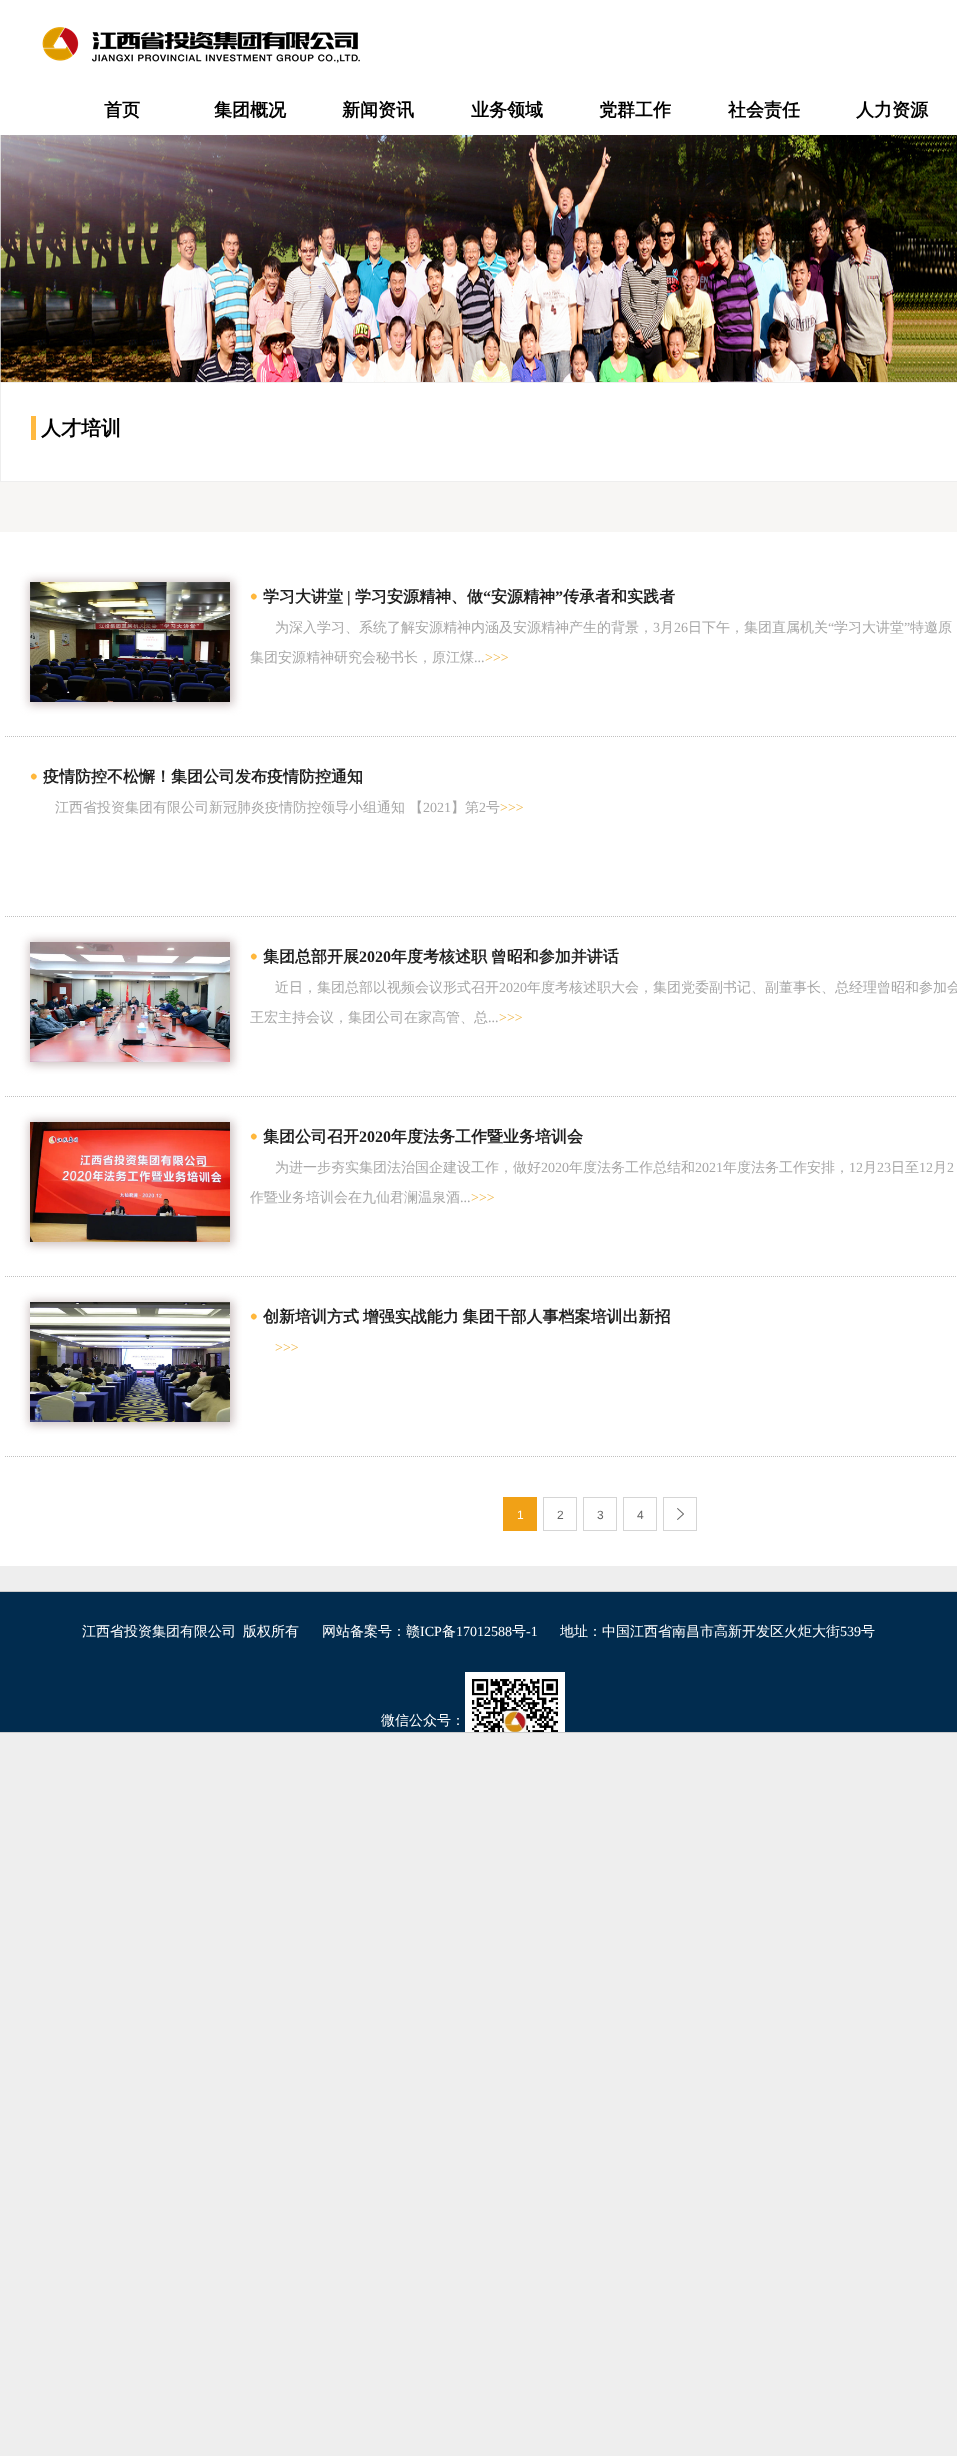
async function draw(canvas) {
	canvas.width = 957;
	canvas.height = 2456;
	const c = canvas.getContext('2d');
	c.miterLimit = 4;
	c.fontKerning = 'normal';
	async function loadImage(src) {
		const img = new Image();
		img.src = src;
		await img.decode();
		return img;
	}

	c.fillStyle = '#eee';
	c.fillRect(0, 0, 957, 2456);
	c.fillStyle = '#fff';
	c.fillRect(0, 0, 957, 135);
	c.drawImage(await loadImage('img1.png'), 42, 27, 318, 36);
	c.font = 'bold 18px WenQuanYi Zen Hei';
	c.fillStyle = '#000';
	for (const [text, x, y] of [
		['首页', 104, 116],
		['集团概况', 214, 116],
		['新闻资讯', 342, 116],
		['业务领域', 471, 116],
		['党群工作', 599, 116],
		['社会责任', 728, 116],
		['人力资源', 856, 116],
	]) {
		c.fillText(text, x, y);
	}
	c.drawImage(await loadImage('img2.png'), 0, 135, 957, 247);
	c.fillStyle = '#fff';
	c.fillRect(0, 383, 957, 1183);
	c.strokeStyle = '#eee';
	c.strokeRect(0.5, 382.5, 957, 99);
	c.font = 'bold 20px WenQuanYi Zen Hei';
	c.fillStyle = '#000';
	c.fillText('人才培训', 41, 435);
	c.fillStyle = '#ffb940';
	c.fillRect(31, 416, 5, 24);
	c.fillStyle = '#f7f6f4';
	c.fillRect(0, 482, 957, 50);
	c.beginPath();
	c.moveTo(5, 736.5);
	c.lineTo(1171, 736.5);
	c.strokeStyle = '#c0c0c0';
	c.setLineDash([1, 1]);
	c.stroke();
	c.fillStyle = '#ccc0c0';
	c.filter = 'blur(5px)';
	c.beginPath();
	c.rect(29, 581, 204, 124);
	c.fill();
	c.filter = 'none';
	c.drawImage(await loadImage('img3.png'), 30, 582, 200, 120);
	c.drawImage(await loadImage('img4.png'), 250, 593, 7, 7);
	c.font = 'bold 16px WenQuanYi Zen Hei';
	c.fillStyle = '#202020';
	c.fillText('学习大讲堂', 263, 602);
	c.font = 'bold 16px Liberation Serif';
	c.fillText('|', 347, 602);
	c.font = 'bold 16px WenQuanYi Zen Hei';
	c.fillText('学习安源精神、做', 355, 602);
	c.font = 'bold 16px Liberation Serif';
	c.fillText('“', 483, 602);
	c.font = 'bold 16px WenQuanYi Zen Hei';
	c.fillText('安源精神', 491, 602);
	c.font = 'bold 16px Liberation Serif';
	c.fillText('”', 555, 602);
	c.font = 'bold 16px WenQuanYi Zen Hei';
	c.fillText('传承者和实践者', 563, 602);
	c.font = '500 14px WenQuanYi Zen Hei';
	c.fillStyle = '#a7a7a7';
	c.fillText('为深入学习、系统了解安源精神内涵及安源精神产生的背景，', 275, 632);
	c.font = '14px Liberation Serif';
	c.fillText('3', 653, 632);
	c.font = '500 14px WenQuanYi Zen Hei';
	c.fillText('月', 660, 632);
	c.font = '14px Liberation Serif';
	c.fillText('26', 674, 632);
	c.font = '500 14px WenQuanYi Zen Hei';
	c.fillText('日下午，集团直属机关', 688, 632);
	c.font = '14px Liberation Serif';
	c.fillText('“', 828, 632);
	c.font = '500 14px WenQuanYi Zen Hei';
	c.fillText('学习大讲堂', 834, 632);
	c.font = '14px Liberation Serif';
	c.fillText('”', 904, 632);
	c.font = '500 14px WenQuanYi Zen Hei';
	c.fillText('特邀原', 910, 632);
	c.fillText('集团安源精神研究会秘书长，原江煤', 250, 662);
	c.font = '14px Liberation Serif';
	c.fillStyle = '#efb647';
	c.fillText('>>>', 485, 662);
	c.fillStyle = '#a7a7a7';
	c.fillText('...', 474, 662);
	c.beginPath();
	c.moveTo(5, 916.5);
	c.lineTo(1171, 916.5);
	c.stroke();
	c.drawImage(await loadImage('img4.png'), 30, 773, 7, 7);
	c.font = 'bold 16px WenQuanYi Zen Hei';
	c.fillStyle = '#202020';
	c.fillText('疫情防控不松懈！集团公司发布疫情防控通知', 43, 782);
	c.font = '500 14px WenQuanYi Zen Hei';
	c.fillStyle = '#a7a7a7';
	c.fillText('江西省投资集团有限公司新冠肺炎疫情防控领导小组通知', 55, 812);
	c.fillText('【', 409, 812);
	c.font = '14px Liberation Serif';
	c.fillText('2021', 423, 812);
	c.font = '500 14px WenQuanYi Zen Hei';
	c.fillText('】第', 451, 812);
	c.font = '14px Liberation Serif';
	c.fillText('2', 479, 812);
	c.font = '500 14px WenQuanYi Zen Hei';
	c.fillText('号', 486, 812);
	c.font = '14px Liberation Serif';
	c.fillStyle = '#efb647';
	c.fillText('>>>', 500, 812);
	c.beginPath();
	c.moveTo(5, 1096.5);
	c.lineTo(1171, 1096.5);
	c.stroke();
	c.fillStyle = '#ccc0c0';
	c.filter = 'blur(5px)';
	c.beginPath();
	c.rect(29, 941, 204, 124);
	c.fill();
	c.filter = 'none';
	c.drawImage(await loadImage('img5.png'), 30, 942, 200, 120);
	c.drawImage(await loadImage('img4.png'), 250, 953, 7, 7);
	c.font = 'bold 16px WenQuanYi Zen Hei';
	c.fillStyle = '#202020';
	c.fillText('集团总部开展', 263, 962);
	c.font = 'bold 16px Liberation Serif';
	c.fillText('2020', 359, 962);
	c.wordSpacing = '-1px';
	c.font = 'bold 16px WenQuanYi Zen Hei';
	c.fillText('年度考核述职 曾昭和参加并讲话', 391, 962);
	c.wordSpacing = '0px';
	c.font = '500 14px WenQuanYi Zen Hei';
	c.fillStyle = '#a7a7a7';
	c.fillText('近日，集团总部以视频会议形式召开', 275, 992);
	c.font = '14px Liberation Serif';
	c.fillText('2020', 499, 992);
	c.font = '500 14px WenQuanYi Zen Hei';
	c.fillText('年度考核述职大会，集团党委副书记、副董事长、总经理曾昭和参加会', 527, 992);
	c.fillText('王宏主持会议，集团公司在家高管、总', 250, 1022);
	c.font = '14px Liberation Serif';
	c.fillStyle = '#efb647';
	c.fillText('>>>', 499, 1022);
	c.fillStyle = '#a7a7a7';
	c.fillText('...', 488, 1022);
	c.beginPath();
	c.moveTo(5, 1276.5);
	c.lineTo(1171, 1276.5);
	c.stroke();
	c.fillStyle = '#ccc0c0';
	c.filter = 'blur(5px)';
	c.beginPath();
	c.rect(29, 1121, 204, 124);
	c.fill();
	c.filter = 'none';
	c.drawImage(await loadImage('img6.png'), 30, 1122, 200, 120);
	c.drawImage(await loadImage('img4.png'), 250, 1133, 7, 7);
	c.font = 'bold 16px WenQuanYi Zen Hei';
	c.fillStyle = '#202020';
	c.fillText('集团公司召开', 263, 1142);
	c.font = 'bold 16px Liberation Serif';
	c.fillText('2020', 359, 1142);
	c.font = 'bold 16px WenQuanYi Zen Hei';
	c.fillText('年度法务工作暨业务培训会', 391, 1142);
	c.font = '500 14px WenQuanYi Zen Hei';
	c.fillStyle = '#a7a7a7';
	c.fillText('为进一步夯实集团法治国企建设工作，做好', 275, 1172);
	c.font = '14px Liberation Serif';
	c.fillText('2020', 541, 1172);
	c.font = '500 14px WenQuanYi Zen Hei';
	c.fillText('年度法务工作总结和', 569, 1172);
	c.font = '14px Liberation Serif';
	c.fillText('2021', 695, 1172);
	c.font = '500 14px WenQuanYi Zen Hei';
	c.fillText('年度法务工作安排，', 723, 1172);
	c.font = '14px Liberation Serif';
	c.fillText('12', 849, 1172);
	c.font = '500 14px WenQuanYi Zen Hei';
	c.fillText('月', 863, 1172);
	c.font = '14px Liberation Serif';
	c.fillText('23', 877, 1172);
	c.font = '500 14px WenQuanYi Zen Hei';
	c.fillText('日至', 891, 1172);
	c.font = '14px Liberation Serif';
	c.fillText('12', 919, 1172);
	c.font = '500 14px WenQuanYi Zen Hei';
	c.fillText('月', 933, 1172);
	c.font = '14px Liberation Serif';
	c.fillText('2', 947, 1172);
	c.font = '500 14px WenQuanYi Zen Hei';
	c.fillText('作暨业务培训会在九仙君澜温泉酒', 250, 1202);
	c.font = '14px Liberation Serif';
	c.fillStyle = '#efb647';
	c.fillText('>>>', 471, 1202);
	c.fillStyle = '#a7a7a7';
	c.fillText('...', 460, 1202);
	c.beginPath();
	c.moveTo(5, 1456.5);
	c.lineTo(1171, 1456.5);
	c.stroke();
	c.fillStyle = '#ccc0c0';
	c.filter = 'blur(5px)';
	c.beginPath();
	c.rect(29, 1301, 204, 124);
	c.fill();
	c.filter = 'none';
	c.drawImage(await loadImage('img7.png'), 30, 1302, 200, 120);
	c.drawImage(await loadImage('img4.png'), 250, 1313, 7, 7);
	c.wordSpacing = '-1px';
	c.font = 'bold 16px WenQuanYi Zen Hei';
	c.fillStyle = '#202020';
	c.fillText('创新培训方式 增强实战能力 集团干部人事档案培训出新招', 263, 1322);
	c.wordSpacing = '0px';
	c.font = '14px Liberation Serif';
	c.fillStyle = '#efb647';
	c.fillText('>>>', 275, 1352);
	c.fillStyle = '#f1a116';
	c.fillRect(503, 1497, 34, 34);
	c.font = '12px Liberation Sans';
	c.fillStyle = '#fff';
	c.fillText('1', 517, 1519);
	c.strokeStyle = '#d5d5d5';
	c.setLineDash([]);
	c.strokeRect(543.5, 1497.5, 33, 33);
	c.fillStyle = '#666';
	c.fillText('2', 557, 1519);
	c.strokeRect(583.5, 1497.5, 33, 33);
	c.fillText('3', 597, 1519);
	c.strokeRect(623.5, 1497.5, 33, 33);
	c.fillText('4', 637, 1519);
	c.drawImage(await loadImage('img8.png'), 677, 1508, 7, 12);
	c.strokeRect(663.5, 1497.5, 33, 33);
	for (const [x, y, w, h, color] of [
		[0, 1591, 957, 1, '#ccc'],
		[0, 1732, 957, 1, '#ccc'],
		[0, 1592, 957, 140, '#012c4f'],
	]) {
		c.fillStyle = color;
		c.fillRect(x, y, w, h);
	}
	c.font = '500 14px WenQuanYi Zen Hei';
	c.fillStyle = '#fff';
	for (const [text, x, y] of [
		['江西省投资集团有限公司', 82, 1636],
		['版权所有', 243, 1636],
		['网站备案号：赣', 322, 1636],
	]) {
		c.fillText(text, x, y);
	}
	c.font = '14px Liberation Serif';
	c.fillText('ICP', 420, 1636);
	c.font = '500 14px WenQuanYi Zen Hei';
	c.fillText('备', 442, 1636);
	c.font = '14px Liberation Serif';
	c.fillText('17012588', 456, 1636);
	c.font = '500 14px WenQuanYi Zen Hei';
	c.fillText('号', 512, 1636);
	c.font = '14px Liberation Serif';
	c.fillText('-1', 526, 1636);
	c.font = '500 14px WenQuanYi Zen Hei';
	c.fillText('地址：中国江西省南昌市高新开发区火炬大街', 560, 1636);
	c.font = '14px Liberation Serif';
	c.fillText('539', 840, 1636);
	c.font = '500 14px WenQuanYi Zen Hei';
	c.fillText('号', 861, 1636);
	c.fillText('微信公众号：', 381, 1725);
	c.drawImage(await loadImage('img9.png'), 465, 1672, 100, 60);
}

draw(document.querySelector('canvas'));
